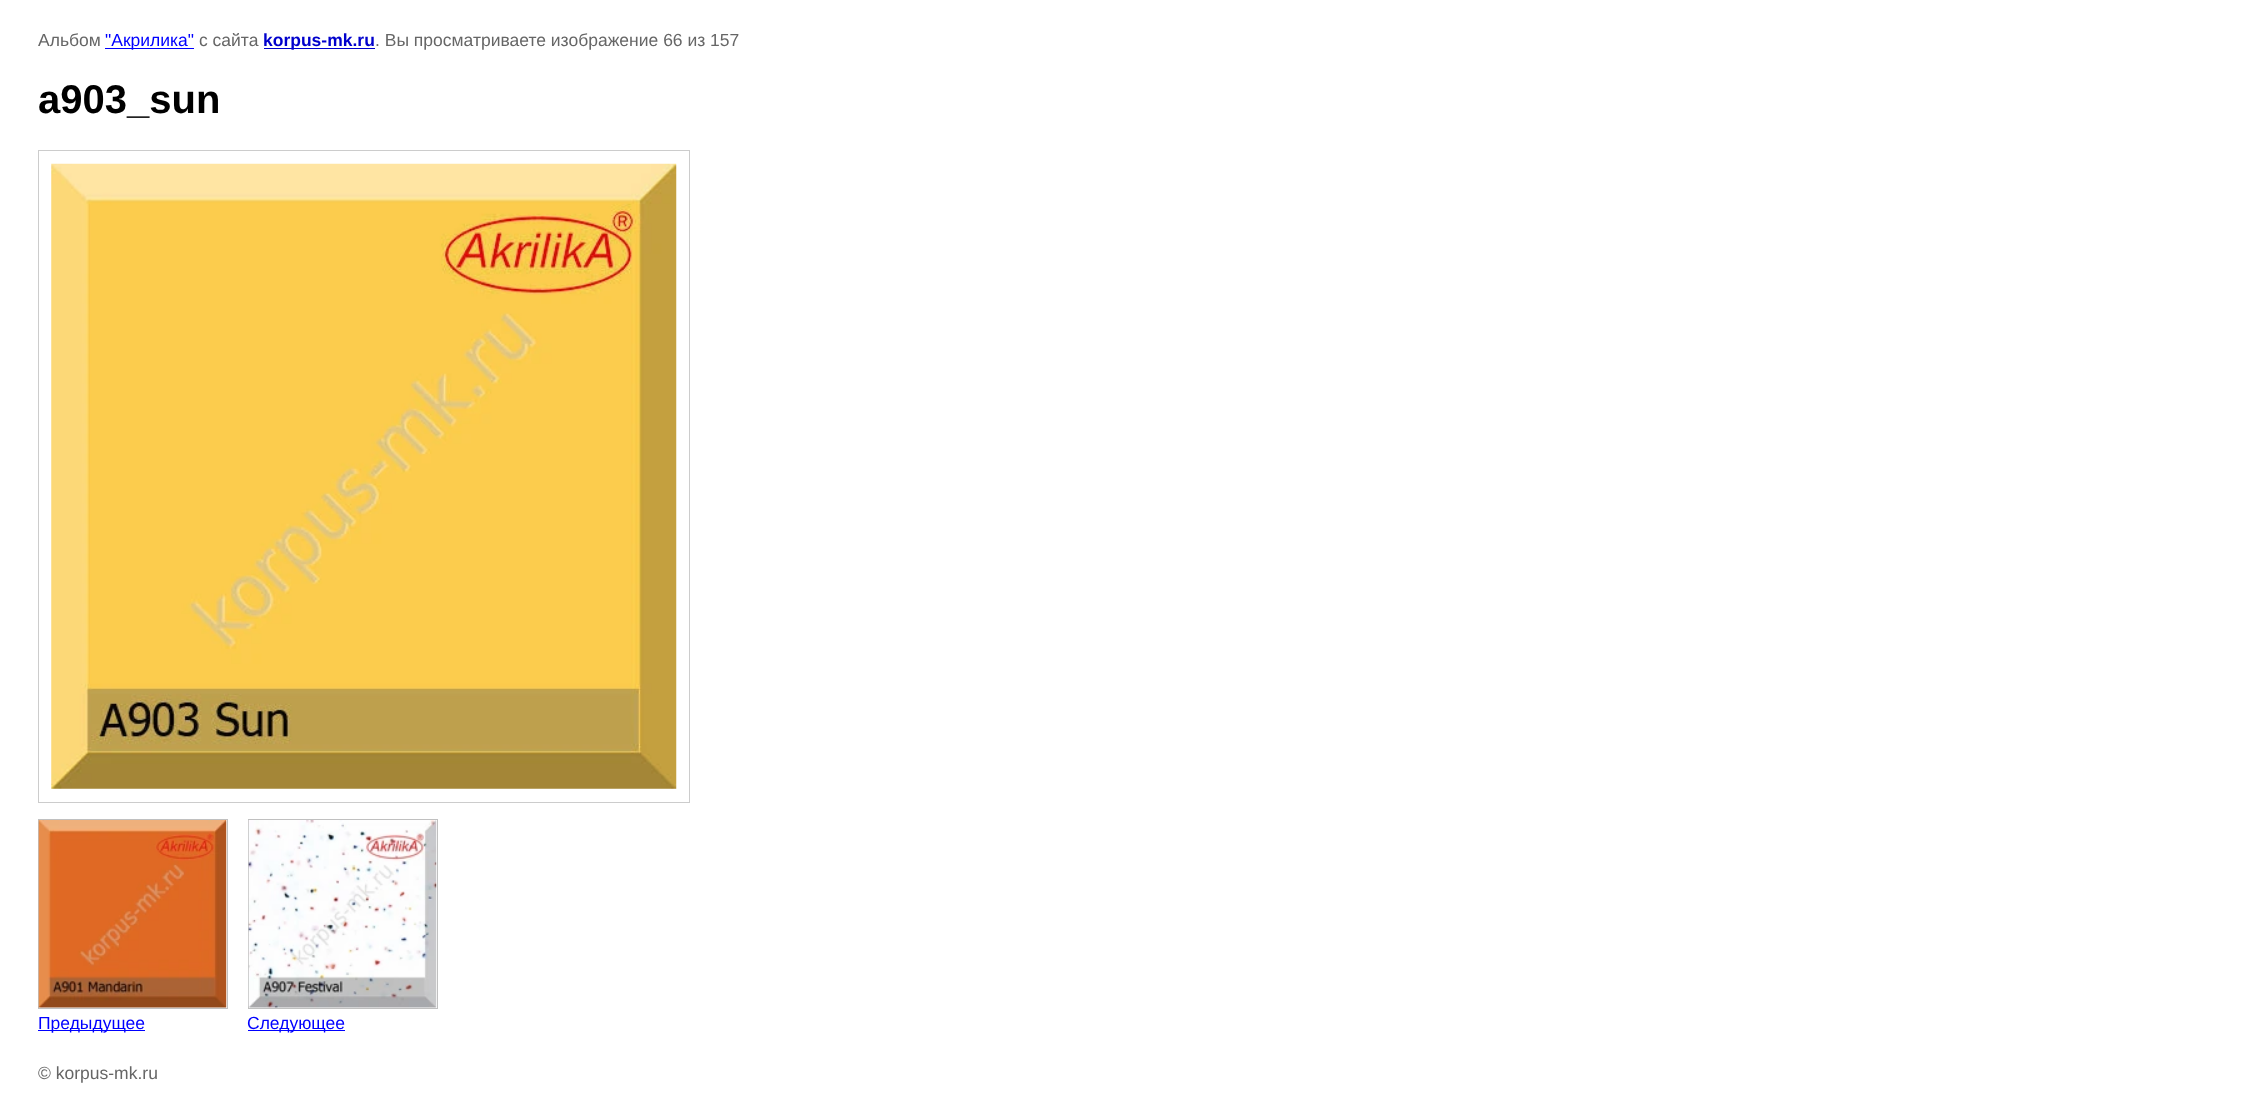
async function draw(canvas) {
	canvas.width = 2250;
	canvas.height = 1120;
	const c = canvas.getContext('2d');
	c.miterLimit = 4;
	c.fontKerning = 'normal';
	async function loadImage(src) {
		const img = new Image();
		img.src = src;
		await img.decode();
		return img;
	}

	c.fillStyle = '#fff';
	c.fillRect(0, 0, 2250, 1120);
	c.font = '17.5px Liberation Sans';
	c.fillStyle = '#666';
	c.fillText('Альбом', 38, 46);
	c.fillStyle = '#00f';
	c.fillRect(105, 48, 89, 1);
	c.fillText('"Акрилика"', 105, 46);
	c.fillStyle = '#666';
	c.fillText('с сайта', 199, 46);
	c.fillStyle = '#00c';
	c.fillRect(264, 48, 111, 1);
	c.font = 'bold 17.5px Liberation Sans';
	c.fillText('korpus-mk.ru', 263, 46);
	c.font = '17.5px Liberation Sans';
	c.fillStyle = '#666';
	c.fillText('. Вы просматриваете изображение 66 из 157', 375, 46);
	c.font = 'bold 40px Liberation Sans';
	c.fillStyle = '#000';
	c.fillText('a903_sun', 38, 113);
	c.strokeStyle = '#ccc';
	c.strokeRect(38.5, 150.5, 651, 652);
	c.drawImage(await loadImage('img1.png'), 51, 163, 626, 626);
	c.strokeStyle = '#c0c0c0';
	c.strokeRect(38.5, 819.5, 189, 189);
	c.drawImage(await loadImage('img2.png'), 38, 820, 189, 188);
	c.fillStyle = '#00f';
	c.fillRect(38, 1030, 107, 1);
	c.font = '17.5px Liberation Sans';
	c.fillText('Предыдущее', 38, 1029);
	c.strokeRect(248.5, 819.5, 189, 189);
	c.drawImage(await loadImage('img3.png'), 248, 820, 189, 188);
	c.fillRect(248, 1030, 97, 1);
	c.fillText('Следующее', 247, 1029);
	c.fillStyle = '#666';
	c.fillText('© korpus-mk.ru', 38, 1079);
}

draw(document.querySelector('canvas'));
